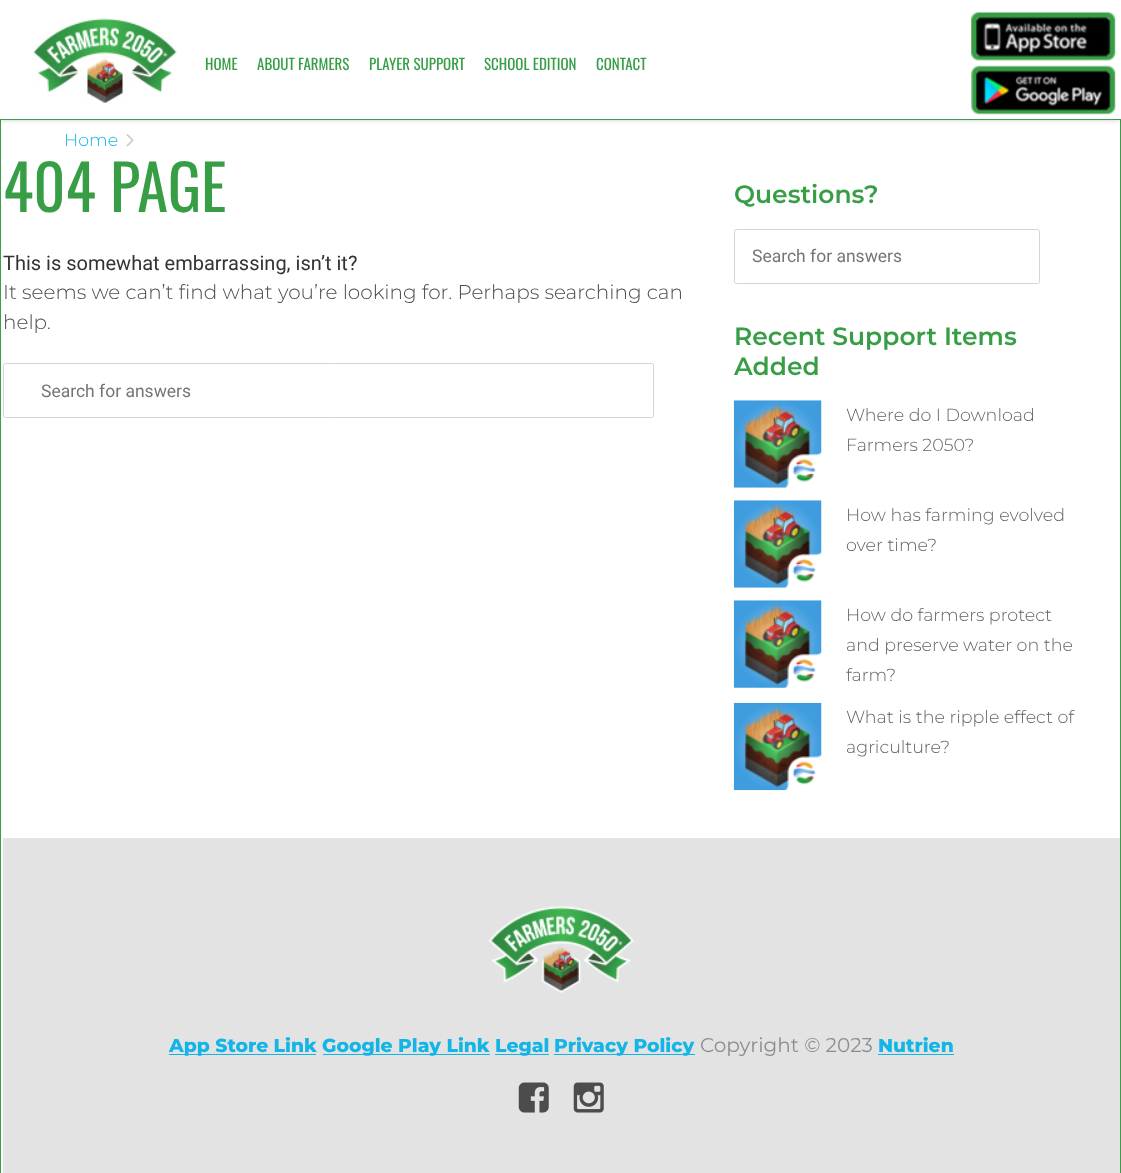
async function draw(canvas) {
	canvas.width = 1121;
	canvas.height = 1173;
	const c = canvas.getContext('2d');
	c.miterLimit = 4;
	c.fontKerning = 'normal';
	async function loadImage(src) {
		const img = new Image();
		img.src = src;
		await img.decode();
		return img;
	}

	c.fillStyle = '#fff';
	c.fillRect(0, 0, 1121, 1173);
	c.fillStyle = '#3c9d4a';
	c.fillRect(1120, 120, 1, 1053);
	c.fillRect(0, 120, 1, 1053);
	c.fillStyle = '#00000033';
	c.filter = 'blur(2.5px)';
	c.beginPath();
	c.rect(0, 0, 1121, 120);
	c.fill();
	c.filter = 'none';
	c.fillStyle = '#fff';
	c.fillRect(0, 0, 1121, 119);
	c.fillStyle = '#3c9d4a';
	c.fillRect(0, 119, 1121, 1);
	c.drawImage(await loadImage('img1.png'), 33, 18, 144, 86);
	c.font = '15px Oswald';
	c.fillStyle = '#379e46';
	for (const [text, x, y] of [
		['HOME', 205, 70],
		['ABOUT FARMERS', 257, 70],
		['PLAYER SUPPORT', 369, 70],
		['SCHOOL EDITION', 484, 70],
		['CONTACT', 596, 70],
	]) {
		c.fillText(text, x, y);
	}
	c.drawImage(await loadImage('img2.png'), 971, 12, 145, 49);
	c.drawImage(await loadImage('img3.png'), 971, 65, 145, 50);
	c.font = '300 17.5px Montserrat';
	c.fillStyle = '#13b5e6';
	c.fillText('Home', 64, 146);
	c.drawImage(await loadImage('img4.png'), 126, 134, 8, 13);
	c.font = '62.5px Oswald';
	c.fillStyle = '#379e46';
	c.fillText('404 PAGE', 3, 212);
	c.font = '20px Roboto';
	c.fillStyle = '#333';
	c.fillText('This is somewhat embarrassing, isn’t it?', 3, 270);
	c.font = '300 20px Montserrat';
	c.fillStyle = '#4c4c4c';
	c.fillText('It seems we can’t find what you’re looking for. Perhaps searching can', 3, 299);
	c.fillText('help.', 3, 329);
	c.beginPath();
	c.roundRect(3.5, 363.5, 650, 54, 2);
	c.strokeStyle = '#d5d5d5';
	c.stroke();
	c.font = '17.5px Roboto';
	c.fillStyle = '#757575';
	c.fillText('Search for answers', 41, 397);
	c.font = '600 25px Montserrat';
	c.fillStyle = '#379e46';
	c.fillText('Questions?', 734, 203);
	c.beginPath();
	c.roundRect(734.5, 229.5, 305, 54, 2);
	c.stroke();
	c.font = '17.5px Roboto';
	c.fillStyle = '#757575';
	c.fillText('Search for answers', 752, 262);
	c.font = '600 25px Montserrat';
	c.fillStyle = '#379e46';
	c.fillText('Recent Support Items', 734, 345);
	c.fillText('Added', 734, 375);
	c.drawImage(await loadImage('img5.png'), 733, 400, 89, 88);
	c.font = '300 17.5px Montserrat';
	c.fillStyle = '#656565';
	c.fillText('Where do I Download', 846, 421);
	c.fillText('Farmers 2050?', 846, 451);
	c.drawImage(await loadImage('img6.png'), 733, 500, 89, 88);
	c.fillText('How has farming evolved', 846, 521);
	c.fillText('over time?', 846, 551);
	c.drawImage(await loadImage('img7.png'), 733, 600, 89, 88);
	for (const [text, x, y] of [
		['How do farmers protect', 846, 621],
		['and preserve water on the', 846, 651],
		['farm?', 846, 681],
	]) {
		c.fillText(text, x, y);
	}
	c.drawImage(await loadImage('img8.png'), 733, 702, 89, 89);
	c.fillText('What is the ripple effect of', 846, 723);
	c.fillText('agriculture?', 846, 753);
	c.fillStyle = '#e3e3e3';
	c.fillRect(3, 838, 1117, 335);
	c.drawImage(await loadImage('img9.png'), 488, 906, 146, 87);
	c.fillStyle = '#13b5e6';
	c.fillRect(169, 1054, 147, 1);
	c.font = '800 18.75px Montserrat';
	c.fillText('App Store Link', 169, 1052);
	c.fillRect(323, 1054, 167, 1);
	c.fillText('Google Play Link', 322, 1052);
	c.fillRect(495, 1054, 54, 1);
	c.fillText('Legal', 495, 1052);
	c.fillRect(554, 1054, 141, 1);
	c.fillText('Privacy Policy', 554, 1052);
	c.font = '20px Montserrat';
	c.fillStyle = '#8d8d8d';
	c.fillText('Copyright © 2023', 700, 1052);
	c.font = '800 18.75px Montserrat';
	c.fillStyle = '#13b5e6';
	c.fillText('Nutrien', 878, 1052);
	c.fillRect(878, 1054, 76, 1);
	c.drawImage(await loadImage('img10.png'), 518, 1082, 31, 31);
	c.drawImage(await loadImage('img11.png'), 573, 1082, 31, 31);
}

draw(document.querySelector('canvas'));
